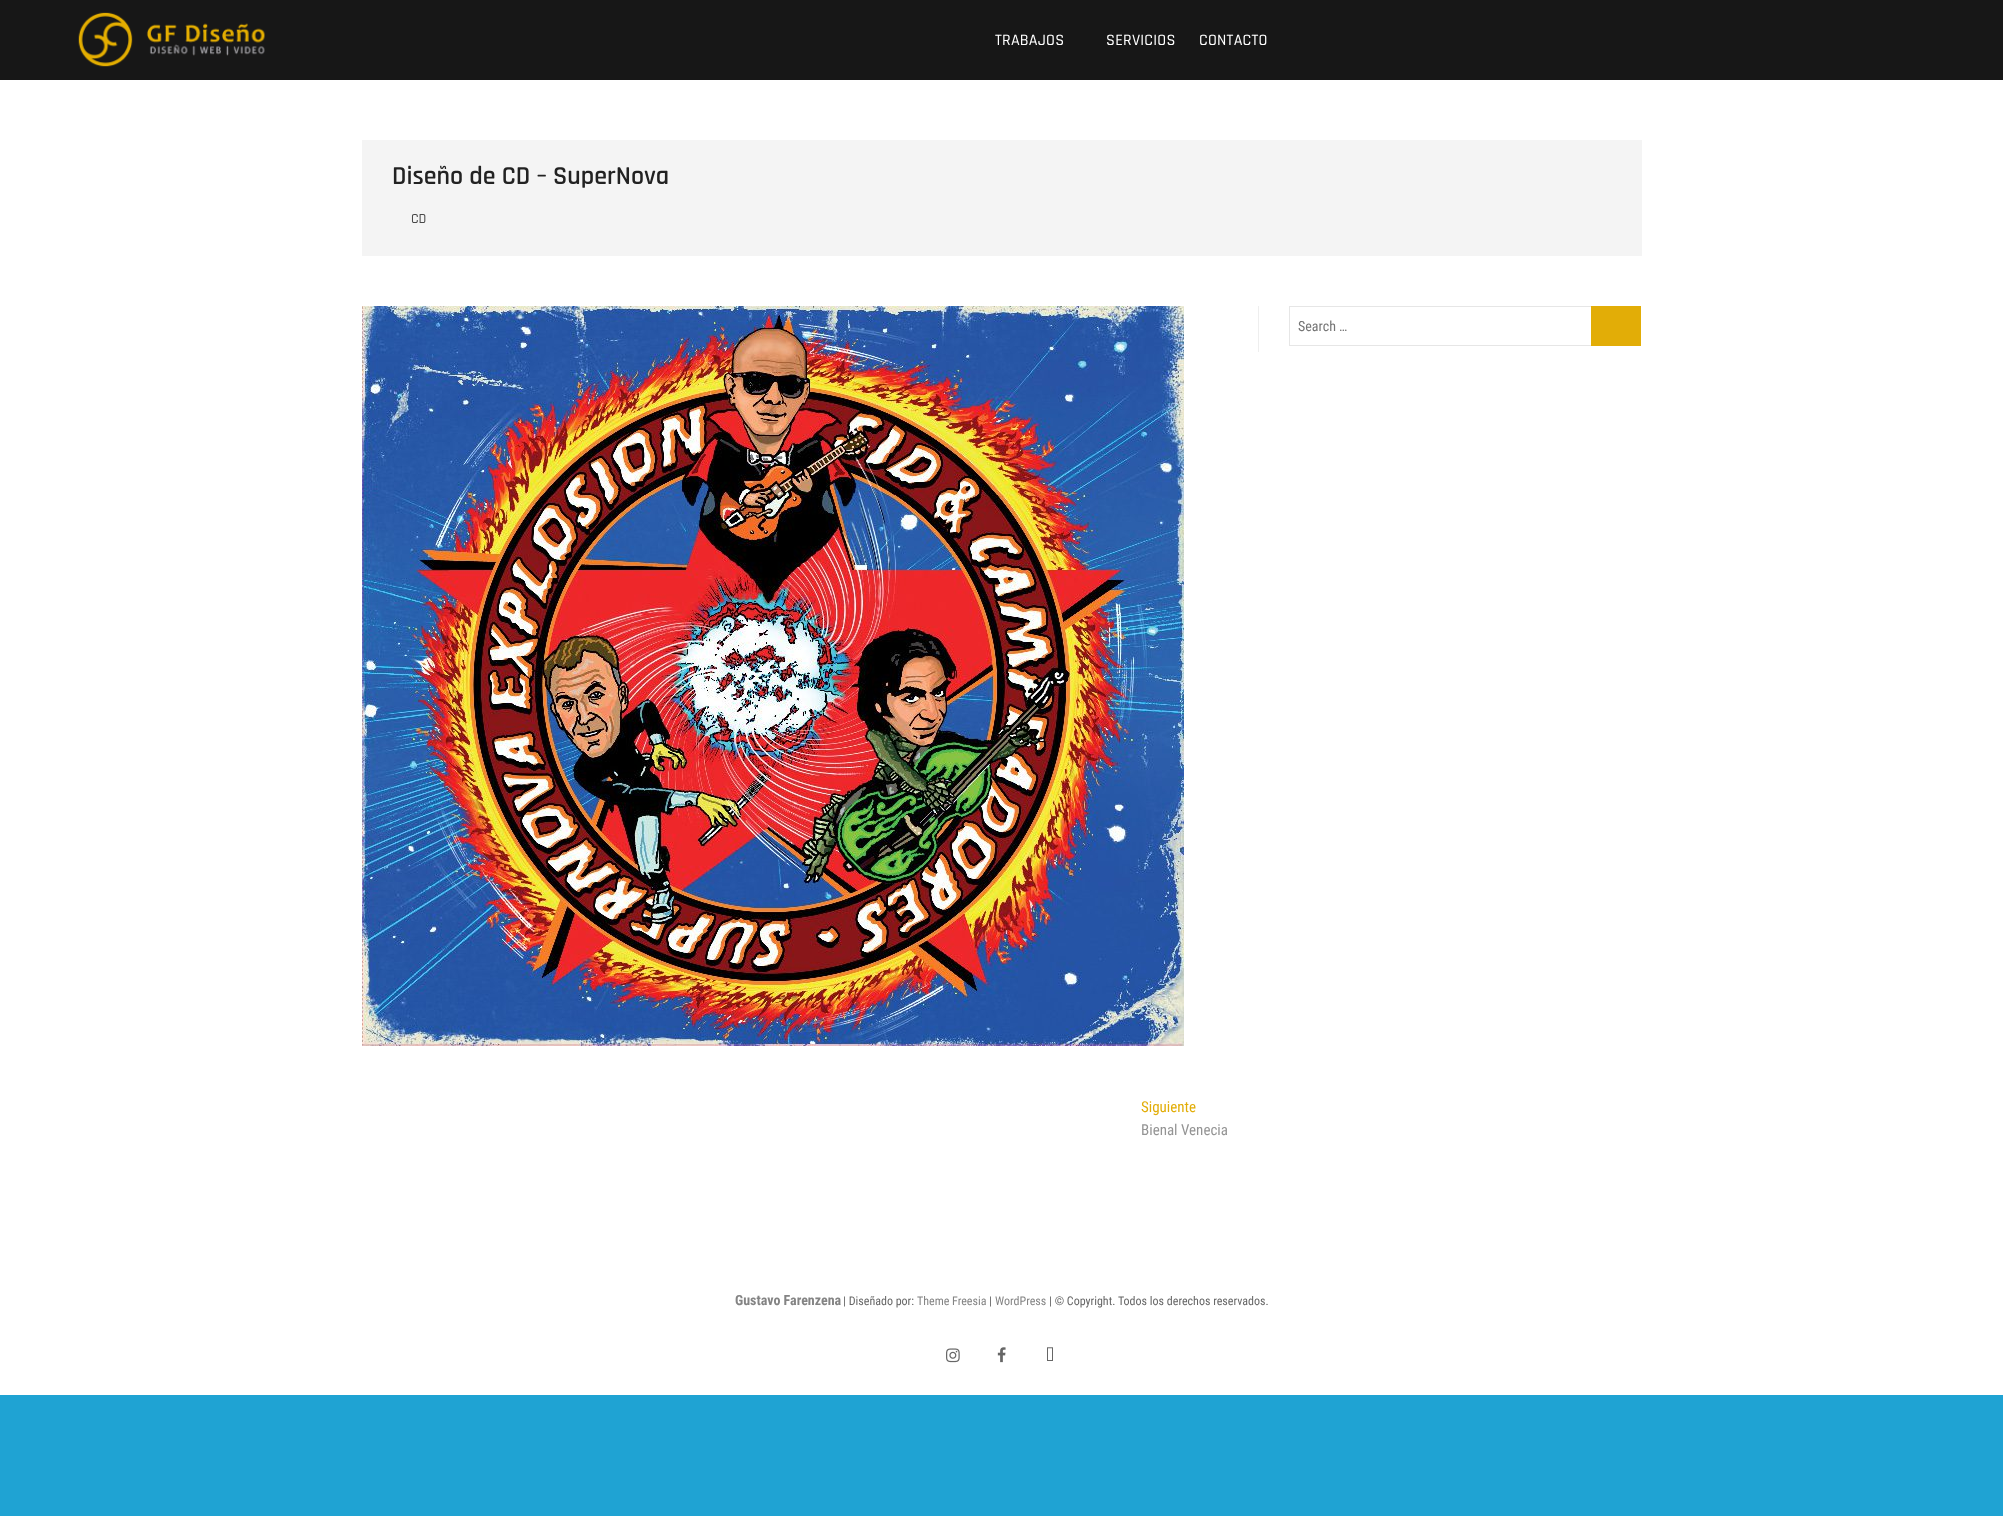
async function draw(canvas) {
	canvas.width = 2003;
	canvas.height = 1516;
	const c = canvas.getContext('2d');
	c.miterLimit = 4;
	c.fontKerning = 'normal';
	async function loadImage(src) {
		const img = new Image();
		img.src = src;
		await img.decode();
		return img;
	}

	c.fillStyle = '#1fa3d3';
	c.fillRect(0, 0, 2003, 1516);
	c.fillStyle = '#fff';
	c.fillRect(0, 80, 2003, 1315);
	c.fillStyle = '#171717';
	c.fillRect(0, 0, 2003, 80);
	c.drawImage(await loadImage('img1.png'), 78, 12, 187, 55);
	c.letterSpacing = '0.25px';
	c.font = '500 16px Rajdhani';
	c.fillStyle = '#fff';
	for (const [text, x, y] of [
		['TRABAJOS', 995, 45],
		['SERVICIOS', 1106, 45],
		['CONTACTO', 1199, 45],
	]) {
		c.fillText(text, x, y);
	}
	c.fillStyle = '#f4f4f4';
	c.fillRect(362, 140, 1280, 116);
	c.letterSpacing = '0px';
	c.font = '600 26px Rajdhani';
	c.fillStyle = '#222';
	c.fillText('Diseño de CD – SuperNova', 392, 184);
	c.font = '500 14px Rajdhani';
	c.fillStyle = '#484848';
	c.fillText('CD', 411, 223);
	c.fillStyle = '#eee';
	c.fillRect(1258, 306, 1, 46);
	c.strokeStyle = '#e6e6e6';
	c.strokeRect(1289.5, 306.5, 302, 39);
	c.font = '14px Roboto Condensed';
	c.fillStyle = '#757575';
	c.fillText('Search …', 1298, 331);
	c.fillStyle = '#e2ad07';
	c.fillRect(1591, 306, 50, 40);
	c.drawImage(await loadImage('img2.png'), 362, 306, 822, 740);
	c.font = '15px Roboto Condensed';
	c.fillText('Siguiente', 1141, 1112);
	c.fillStyle = '#949494';
	c.fillText('Bienal Venecia', 1141, 1135);
	c.font = 'bold 14px Roboto Condensed';
	c.fillStyle = '#848484';
	c.fillText('Gustavo Farenzena', 735, 1305);
	c.font = '12px Roboto Condensed';
	c.fillStyle = '#666';
	c.fillText('| Diseñado por:', 843, 1305);
	c.fillStyle = '#848484';
	c.fillText('Theme Freesia', 917, 1305);
	c.fillStyle = '#666';
	c.fillText('|', 989, 1305);
	c.fillStyle = '#848484';
	c.fillText('WordPress', 995, 1305);
	c.fillStyle = '#666';
	c.fillText('| © Copyright. Todos los derechos reservados.', 1049, 1305);
	c.drawImage(await loadImage('img3.png'), 946, 1348, 14, 15);
	c.drawImage(await loadImage('img4.png'), 997, 1347, 9, 16);
	c.drawImage(await loadImage('img5.png'), 1047, 1347, 6, 14);
}

draw(document.querySelector('canvas'));
